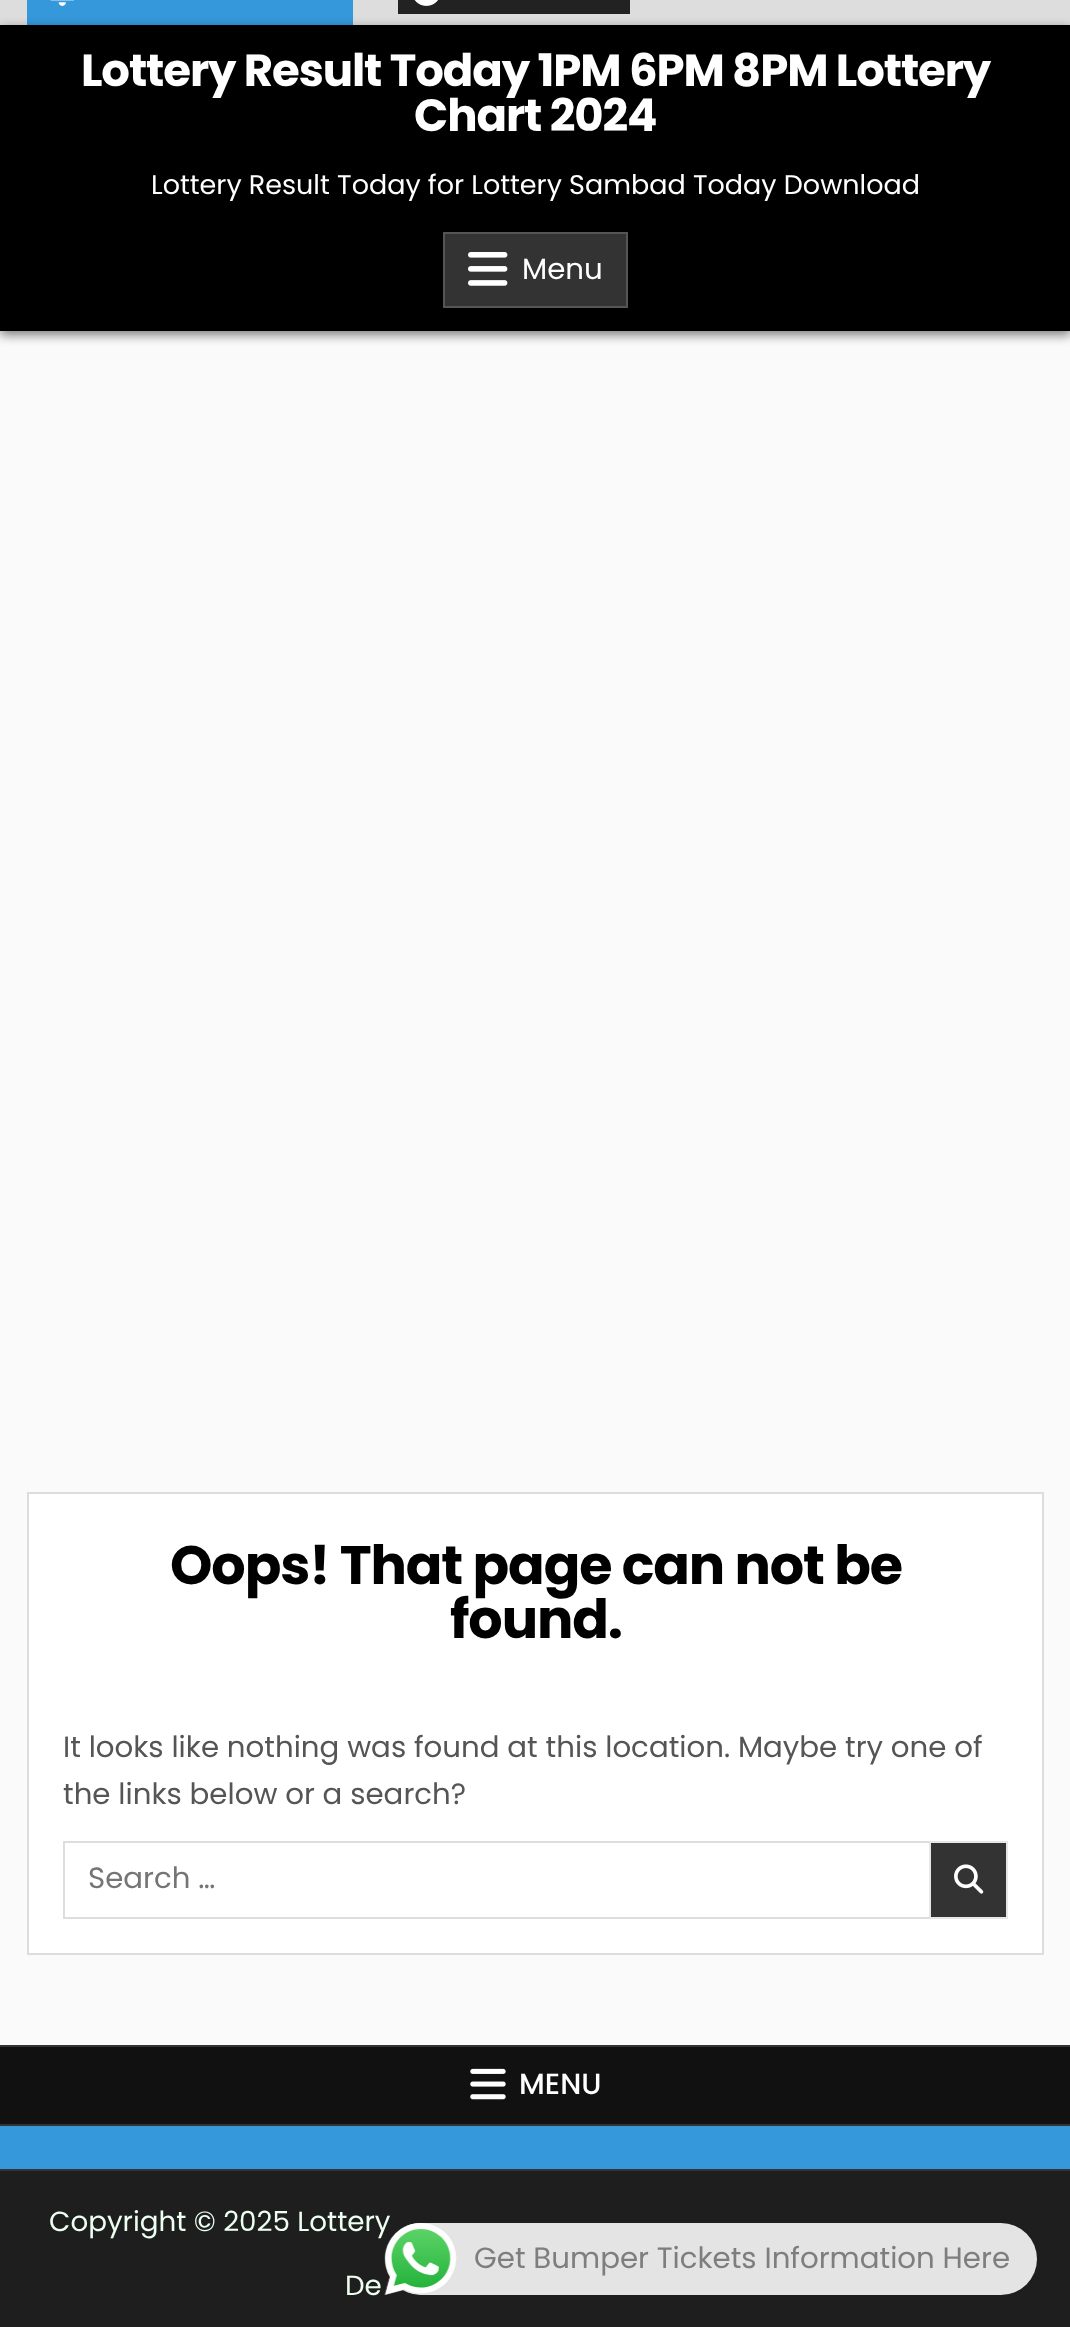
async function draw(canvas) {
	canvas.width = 1070;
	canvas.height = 2327;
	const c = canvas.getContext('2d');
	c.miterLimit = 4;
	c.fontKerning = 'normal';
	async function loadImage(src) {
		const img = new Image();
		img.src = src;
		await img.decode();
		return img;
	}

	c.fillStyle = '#fafafa';
	c.fillRect(0, 0, 1070, 2327);
	c.fillStyle = '#ddd';
	c.fillRect(0, 0, 1070, 25);
	c.fillStyle = '#3498db';
	c.fillRect(27, 0, 326, 25);
	c.drawImage(await loadImage('img1.png'), 50, 0, 25, 6);
	c.fillStyle = '#222';
	c.fillRect(398, 0, 232, 14);
	c.drawImage(await loadImage('img2.png'), 414, 0, 24, 6);
	c.fillStyle = '#00000080';
	c.filter = 'blur(5.5px)';
	c.beginPath();
	c.rect(0, 29, 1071, 306);
	c.fill();
	c.filter = 'none';
	c.fillStyle = '#000';
	c.fillRect(0, 25, 1070, 306);
	c.letterSpacing = '-1.1px';
	c.font = 'bold 45px Poppins';
	c.fillStyle = '#fff';
	c.fillText('Lottery Result Today 1PM 6PM 8PM Lottery', 81, 86);
	c.fillText('Chart 2024', 414, 131);
	c.letterSpacing = '0px';
	c.font = '27px Poppins';
	c.fillText('Lottery Result Today for Lottery Sambad Today Download', 151, 194);
	c.fillStyle = '#333';
	c.beginPath();
	c.rect(444, 233, 183, 74);
	c.fill();
	c.strokeStyle = '#555';
	c.lineWidth = 2;
	c.stroke();
	c.drawImage(await loadImage('img3.png'), 468, 252, 40, 34);
	c.font = '29.25px Poppins';
	c.fillStyle = '#fff';
	c.fillText('Menu', 522, 279);
	c.beginPath();
	c.rect(28, 1493, 1015, 461);
	c.fill();
	c.strokeStyle = '#ddd';
	c.stroke();
	c.letterSpacing = '-1.1px';
	c.font = 'bold 54px Poppins';
	c.fillStyle = '#000';
	c.fillText('Oops! That page can not be', 170, 1584);
	c.fillText('found.', 450, 1638);
	c.letterSpacing = '0px';
	c.font = '29.25px Poppins';
	c.fillStyle = '#555';
	c.fillText('It looks like nothing was found at this location. Maybe try one of', 63, 1757);
	c.fillText('the links below or a search?', 63, 1804);
	c.strokeRect(64, 1842, 943, 76);
	c.fillStyle = '#757575';
	c.fillText('Search …', 88, 1888);
	c.fillStyle = '#333';
	c.beginPath();
	c.rect(930, 1842, 77, 76);
	c.fill();
	c.strokeStyle = '#e6e6e6';
	c.stroke();
	c.drawImage(await loadImage('img4.png'), 954, 1864, 30, 30);
	for (const [x, y, w, h, color] of [
		[0, 2047, 1070, 77, '#111'],
		[0, 2045, 1070, 2, '#333'],
		[0, 2124, 1070, 2, '#333'],
	]) {
		c.fillStyle = color;
		c.fillRect(x, y, w, h);
	}
	c.drawImage(await loadImage('img5.png'), 470, 2068, 36, 32);
	c.font = '500 29.25px Poppins';
	c.fillStyle = '#fff';
	c.fillText('MENU', 519, 2094);
	for (const [x, y, w, h, color] of [
		[0, 2126, 1070, 43, '#3498db'],
		[0, 2171, 1070, 156, '#1e1e1e'],
		[0, 2169, 1070, 2, '#333'],
	]) {
		c.fillStyle = color;
		c.fillRect(x, y, w, h);
	}
	c.font = '27.75px Poppins';
	c.fillStyle = '#ecfff1';
	c.fillText('Copyright © 2025 Lottery', 49, 2231);
	c.fillText('De', 345, 2295);
	c.fillStyle = '#e4e4e4';
	c.beginPath();
	c.roundRect(385, 2223, 652, 72, 36);
	c.fill();
	c.drawImage(await loadImage('img6.png'), 384, 2223, 73, 72);
	c.font = '29.25px Poppins';
	c.fillStyle = '#7f7d7d';
	c.fillText('Get Bumper Tickets Information Here', 474, 2268);
}

draw(document.querySelector('canvas'));
